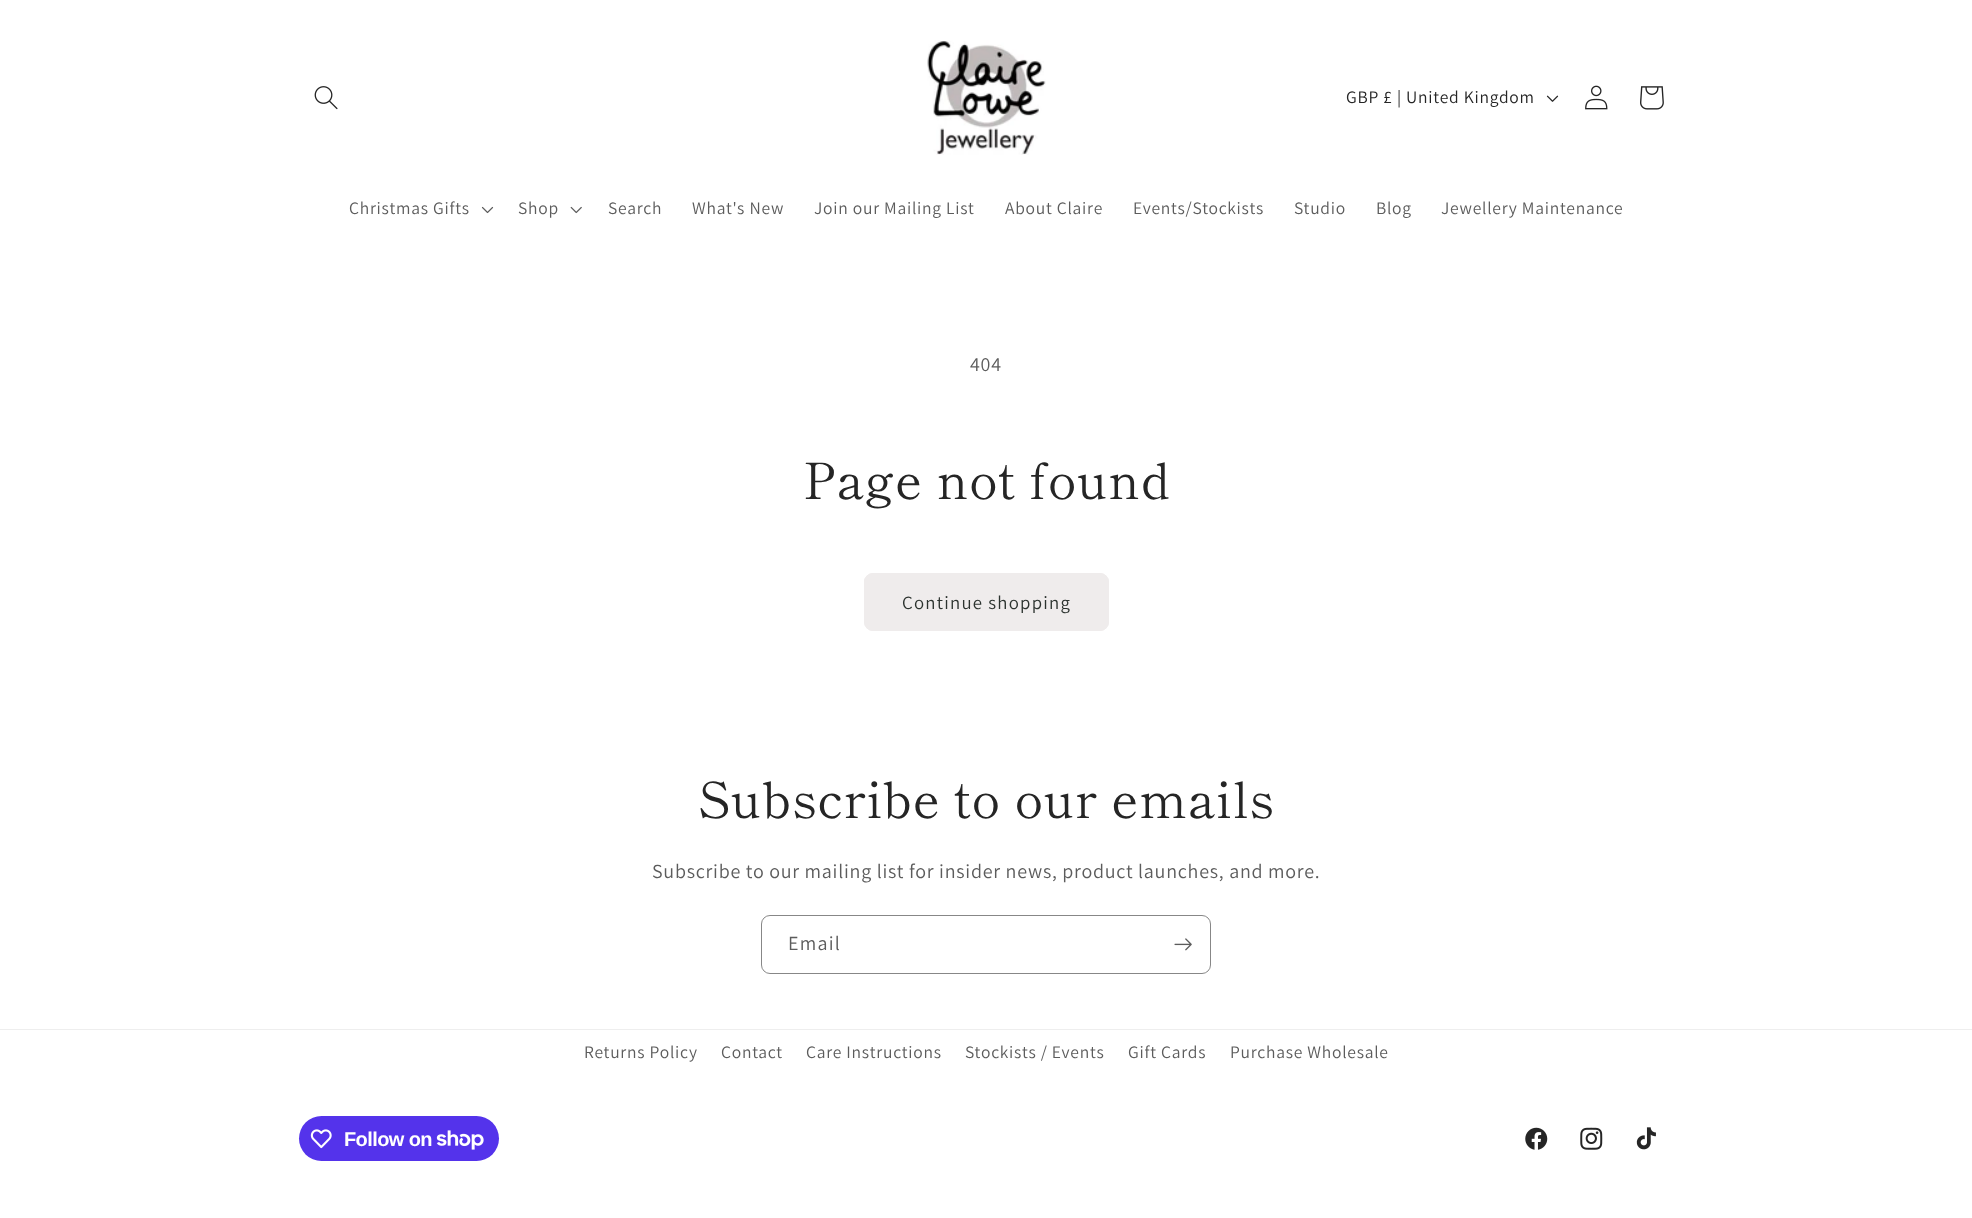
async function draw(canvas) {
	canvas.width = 1972;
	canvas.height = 1218;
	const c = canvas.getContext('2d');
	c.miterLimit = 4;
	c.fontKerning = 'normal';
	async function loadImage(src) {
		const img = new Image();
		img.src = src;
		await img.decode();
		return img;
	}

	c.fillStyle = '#fff';
	c.fillRect(0, 0, 1972, 1218);
	c.drawImage(await loadImage('img1.png'), 314, 86, 24, 24);
	c.drawImage(await loadImage('img2.png'), 927, 40, 119, 115);
	c.letterSpacing = '0.75px';
	c.font = '17.5px Assistant';
	c.fillStyle = '#252525';
	c.fillText('GBP £ | United Kingdom', 1346, 103);
	c.drawImage(await loadImage('img3.png'), 1546, 95, 13, 7);
	c.drawImage(await loadImage('img4.png'), 1585, 85, 23, 25);
	c.drawImage(await loadImage('img5.png'), 1640, 86, 24, 24);
	c.fillStyle = '#5c5c5c';
	c.fillText('Christmas Gifts', 349, 214);
	c.drawImage(await loadImage('img6.png'), 481, 206, 13, 8);
	c.fillText('Shop', 518, 214);
	c.drawImage(await loadImage('img7.png'), 570, 206, 12, 8);
	for (const [text, x, y] of [
		['Search', 608, 214],
		['What\'s New', 692, 214],
		['Join our Mailing List', 814, 214],
		['About Claire', 1005, 214],
		['Events/Stockists', 1133, 214],
		['Studio', 1294, 214],
		['Blog', 1376, 214],
		['Jewellery Maintenance', 1441, 214],
	]) {
		c.fillText(text, x, y);
	}
	c.font = '20px Assistant';
	c.fillText('404', 970, 371);
	c.font = '50px Shippori Mincho';
	c.fillStyle = '#252525';
	c.fillText('Page not found', 803, 499);
	c.fillStyle = '#efecec';
	c.beginPath();
	c.roundRect(864, 573, 245, 58, 9);
	c.fill();
	c.beginPath();
	c.roundRect(864.5, 573.5, 244, 57, 8.5);
	c.strokeStyle = '#efecec';
	c.stroke();
	c.letterSpacing = '1.25px';
	c.font = '18.75px Assistant';
	c.fillStyle = '#2c332f';
	c.fillText('Continue shopping', 902, 609);
	c.letterSpacing = '0.75px';
	c.font = '50px Shippori Mincho';
	c.fillStyle = '#252525';
	c.fillText('Subscribe to our emails', 698, 818);
	c.font = '20px Assistant';
	c.fillStyle = '#5c5c5c';
	c.fillText('Subscribe to our mailing list for insider news, product launches, and more.', 652, 878);
	c.beginPath();
	c.roundRect(761.5, 915.5, 449, 58, 8.5);
	c.strokeStyle = '#878787';
	c.stroke();
	c.letterSpacing = '1.25px';
	c.fillText('Email', 788, 950);
	c.drawImage(await loadImage('img8.png'), 1174, 938, 18, 13);
	c.fillStyle = '#eee';
	c.fillRect(0, 1029, 1972, 1);
	c.letterSpacing = '0.75px';
	c.font = '17.5px Assistant';
	c.fillStyle = '#5c5c5c';
	for (const [text, x, y] of [
		['Returns Policy', 584, 1058],
		['Contact', 721, 1058],
		['Care Instructions', 806, 1058],
		['Stockists / Events', 965, 1058],
		['Gift Cards', 1128, 1058],
		['Purchase Wholesale', 1230, 1058],
	]) {
		c.fillText(text, x, y);
	}
	c.fillStyle = '#5433eb';
	c.beginPath();
	c.roundRect(299, 1116, 200, 45, 22.5);
	c.fill();
	c.drawImage(await loadImage('img9.png'), 310, 1129, 22, 20);
	c.letterSpacing = '-0.6px';
	c.font = 'bold 20px Liberation Sans';
	c.fillStyle = '#fff';
	c.fillText('Follow on', 344, 1146);
	c.drawImage(await loadImage('img10.png'), 436, 1130, 48, 20);
	c.drawImage(await loadImage('img11.png'), 1525, 1127, 23, 23);
	c.drawImage(await loadImage('img12.png'), 1580, 1127, 23, 23);
	c.drawImage(await loadImage('img13.png'), 1636, 1127, 20, 23);
}

draw(document.querySelector('canvas'));
